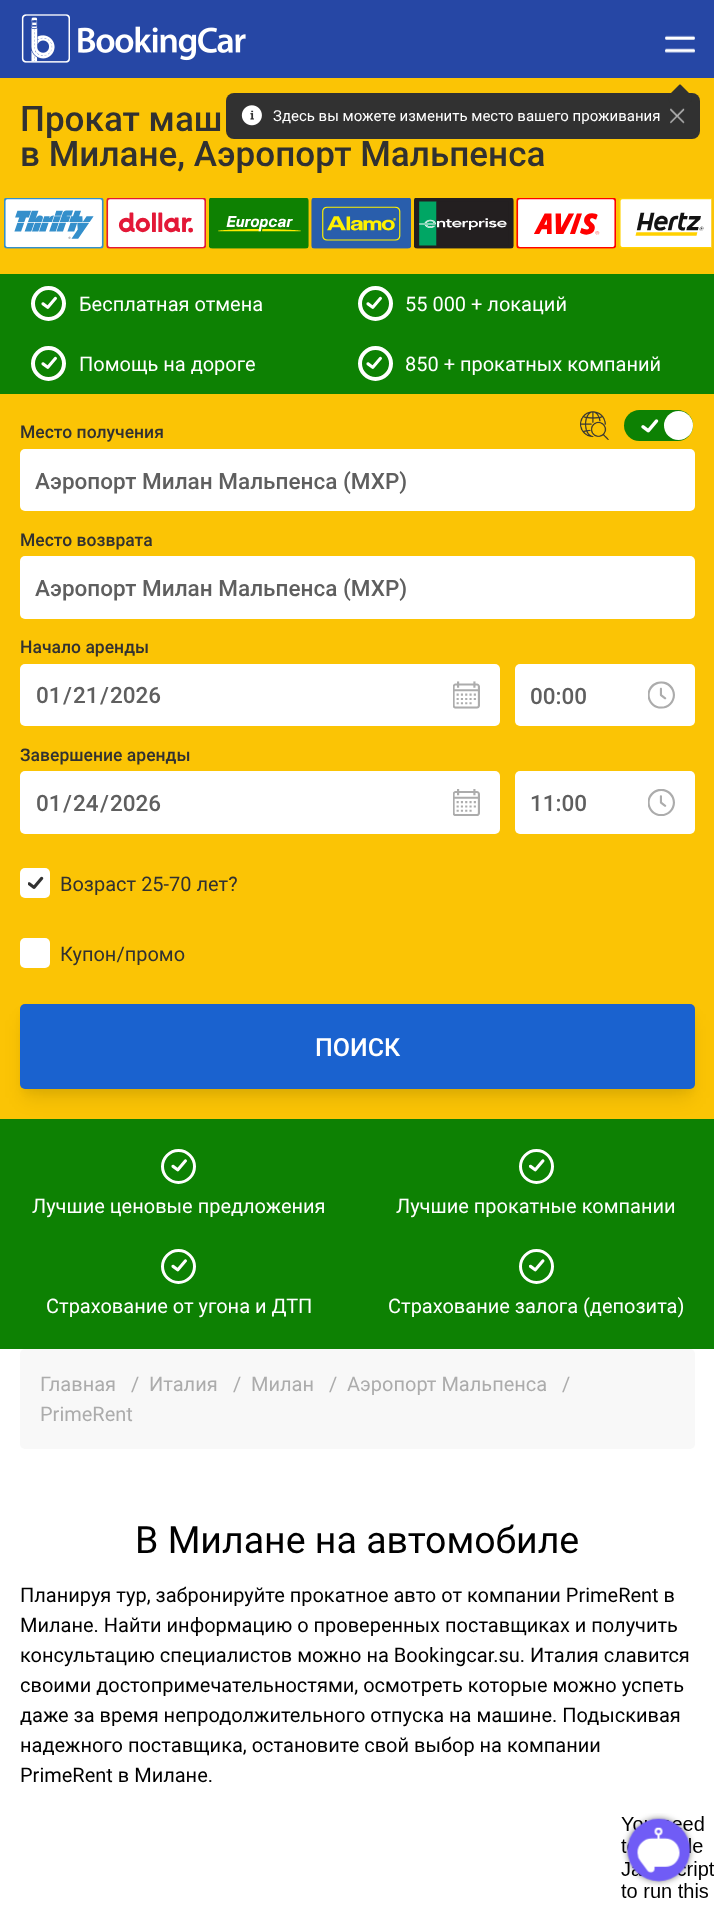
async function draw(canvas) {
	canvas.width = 714;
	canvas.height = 1906;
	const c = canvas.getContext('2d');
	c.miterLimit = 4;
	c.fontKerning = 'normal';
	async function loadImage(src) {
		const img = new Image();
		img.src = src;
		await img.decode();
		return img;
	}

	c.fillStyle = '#fff';
	c.fillRect(0, 0, 714, 1906);
	c.fillStyle = '#fbc405';
	c.fillRect(0, 78, 714, 1041);
	c.font = '500 35px Roboto';
	c.fillStyle = '#313131';
	c.fillText('Прокат маш', 20, 131);
	c.fillText('в Милане, Аэропoрт Мальпенса', 20, 166);
	c.drawImage(await loadImage('img1.png'), 4, 198, 100, 51);
	c.drawImage(await loadImage('img2.png'), 106, 198, 100, 51);
	c.drawImage(await loadImage('img3.png'), 209, 198, 100, 51);
	c.drawImage(await loadImage('img4.png'), 311, 198, 100, 51);
	c.drawImage(await loadImage('img5.png'), 414, 198, 100, 51);
	c.drawImage(await loadImage('img6.png'), 516, 198, 100, 51);
	c.drawImage(await loadImage('img7.png'), 619, 198, 93, 51);
	c.fillStyle = '#0d8103';
	c.fillRect(0, 274, 714, 120);
	c.beginPath();
	c.arc(48.5, 303.5, 15.5, 0, 2 * Math.PI);
	c.strokeStyle = '#fff';
	c.lineWidth = 4;
	c.stroke();
	c.drawImage(await loadImage('img8.png'), 41, 296, 16, 13);
	c.font = '20px Roboto';
	c.fillStyle = '#fff';
	c.fillText('Бесплатная отмена', 79, 311);
	c.beginPath();
	c.arc(375.5, 303.5, 15.5, 0, 2 * Math.PI);
	c.stroke();
	c.drawImage(await loadImage('img8.png'), 366, 296, 16, 13);
	c.fillText('55 000 + локаций', 405, 311);
	c.beginPath();
	c.arc(48.5, 363.5, 15.5, 0, 2 * Math.PI);
	c.stroke();
	c.drawImage(await loadImage('img8.png'), 41, 356, 16, 13);
	c.fillText('Помощь на дороге', 79, 371);
	c.beginPath();
	c.arc(375.5, 363.5, 15.5, 0, 2 * Math.PI);
	c.stroke();
	c.drawImage(await loadImage('img8.png'), 366, 356, 16, 13);
	c.fillText('850 + прокатных компаний', 405, 371);
	c.font = '500 17.5px Roboto';
	c.fillStyle = '#313131';
	c.fillText('Место получения', 20, 438);
	c.fillStyle = '#fff';
	c.beginPath();
	c.roundRect(20, 449, 675, 62, 5);
	c.fill();
	c.font = '500 22.5px Roboto';
	c.fillStyle = '#5f5f5f';
	c.fillText('Аэропорт Милан Мальпенса (MXP)', 35, 489);
	c.drawImage(await loadImage('img9.png'), 580, 411, 29, 29);
	c.fillStyle = '#0d8103';
	c.beginPath();
	c.roundRect(624, 410, 69, 31, 15.5);
	c.fill();
	c.drawImage(await loadImage('img10.png'), 641, 419, 18, 14);
	c.fillStyle = '#fff';
	c.beginPath();
	c.arc(678.5, 425.5, 14.5, 0, 2 * Math.PI);
	c.fill();
	c.font = '500 17.5px Roboto';
	c.fillStyle = '#313131';
	c.fillText('Место возврата', 20, 546);
	c.fillStyle = '#fff';
	c.beginPath();
	c.roundRect(20, 556, 675, 63, 5);
	c.fill();
	c.font = '500 22.5px Roboto';
	c.fillStyle = '#5f5f5f';
	c.fillText('Аэропорт Милан Мальпенса (MXP)', 35, 596);
	c.font = '500 17.5px Roboto';
	c.fillStyle = '#313131';
	c.fillText('Начало аренды', 20, 653);
	c.fillStyle = '#fff';
	c.beginPath();
	c.roundRect(20, 664, 480, 62, 5);
	c.fill();
	c.drawImage(await loadImage('img11.png'), 453, 681, 27, 28);
	c.font = '500 22.5px Roboto';
	c.fillStyle = '#5f5f5f';
	for (const [text, x, y] of [
		['01', 36, 703],
		['/', 63, 703],
		['21', 73, 703],
		['/', 100, 703],
		['2026', 110, 703],
	]) {
		c.fillText(text, x, y);
	}
	c.fillStyle = '#fff';
	c.beginPath();
	c.roundRect(515, 664, 180, 62, 5);
	c.fill();
	c.drawImage(await loadImage('img12.png'), 648, 681, 27, 28);
	c.fillStyle = '#5f5f5f';
	c.fillText('00:00', 530, 704);
	c.font = '500 17.5px Roboto';
	c.fillStyle = '#313131';
	c.fillText('Завершение аренды', 20, 761);
	c.fillStyle = '#fff';
	c.beginPath();
	c.roundRect(20, 771, 480, 63, 5);
	c.fill();
	c.drawImage(await loadImage('img13.png'), 453, 789, 27, 27);
	c.font = '500 22.5px Roboto';
	c.fillStyle = '#5f5f5f';
	for (const [text, x, y] of [
		['01', 36, 811],
		['/', 63, 811],
		['24', 73, 811],
		['/', 100, 811],
		['2026', 110, 811],
	]) {
		c.fillText(text, x, y);
	}
	c.fillStyle = '#fff';
	c.beginPath();
	c.roundRect(515, 771, 180, 63, 5);
	c.fill();
	c.drawImage(await loadImage('img14.png'), 648, 789, 27, 27);
	c.fillStyle = '#5f5f5f';
	c.fillText('11:00', 530, 811);
	c.fillStyle = '#fff';
	c.beginPath();
	c.roundRect(20, 868, 30, 30, 5);
	c.fill();
	c.drawImage(await loadImage('img15.png'), 28, 876, 16, 13);
	c.font = '20px Roboto';
	c.fillStyle = '#313131';
	c.fillText('Возраст 25-70 лет?', 60, 891);
	c.fillStyle = '#fff';
	c.beginPath();
	c.roundRect(20, 938, 30, 30, 5);
	c.fill();
	c.fillStyle = '#313131';
	c.fillText('Купон/промо', 60, 961);
	c.fillStyle = '#0000000d';
	c.filter = 'blur(4px)';
	c.beginPath();
	c.roundRect(23, 1011, 670, 80, 2.5);
	c.fill();
	c.filter = 'none';
	c.fillStyle = '#0d8103';
	c.fillRect(0, 1119, 714, 230);
	c.fillStyle = '#0000001a';
	c.filter = 'blur(9.5px)';
	c.beginPath();
	c.roundRect(24, 1020, 667, 78, 1);
	c.fill();
	c.filter = 'none';
	c.fillStyle = '#1a62cf';
	c.beginPath();
	c.roundRect(20, 1004, 675, 85, 5);
	c.fill();
	c.font = '500 25px Roboto';
	c.fillStyle = '#fff';
	c.fillText('ПОИСК', 315, 1056);
	c.beginPath();
	c.arc(178.5, 1166.5, 16, 0, 2 * Math.PI);
	c.lineWidth = 3;
	c.stroke();
	c.drawImage(await loadImage('img16.png'), 171, 1159, 16, 13);
	c.font = '20px Roboto';
	c.fillText('Лучшие ценовые предложения', 32, 1213);
	c.beginPath();
	c.arc(536.5, 1166.5, 16, 0, 2 * Math.PI);
	c.stroke();
	c.drawImage(await loadImage('img17.png'), 529, 1159, 16, 13);
	c.fillText('Лучшие прокатные компании', 396, 1213);
	c.beginPath();
	c.arc(178.5, 1266.5, 16, 0, 2 * Math.PI);
	c.stroke();
	c.drawImage(await loadImage('img16.png'), 171, 1259, 16, 13);
	c.fillText('Страхование от угона и ДТП', 46, 1313);
	c.beginPath();
	c.arc(536.5, 1266.5, 16, 0, 2 * Math.PI);
	c.stroke();
	c.drawImage(await loadImage('img17.png'), 529, 1259, 16, 13);
	c.fillText('Страхование залога (депозита)', 388, 1313);
	c.fillStyle = '#f8f8f8';
	c.beginPath();
	c.roundRect(20, 1349, 675, 100, 5);
	c.fill();
	c.fillStyle = '#acacac';
	for (const [text, x, y] of [
		['Главная', 40, 1391],
		['/', 131, 1391],
		['Италия', 149, 1391],
		['/', 233, 1391],
		['Милан', 251, 1391],
		['/', 329, 1391],
		['Аэропoрт Мальпенса', 347, 1391],
		['/', 562, 1391],
		['PrimeRent', 40, 1421],
	]) {
		c.fillText(text, x, y);
	}
	c.font = '37.5px Roboto';
	c.fillStyle = '#000';
	c.fillText('В Милане на автомобиле', 135, 1553);
	c.font = '20px Roboto';
	for (const [text, x, y] of [
		['Планируя тур, забронируйте прокатное авто от компании PrimeRent в', 20, 1602],
		['Милане. Найти информацию о проверенных поставщиках и получить', 20, 1632],
		['консультацию специалистов можно на Bookingcar.su. Италия славится', 20, 1662],
		['своими достопримечательностями, осмотреть которые можно успеть', 20, 1692],
		['даже за время непродолжительного отпуска на машине. Подыскивая', 20, 1722],
		['надежного поставщика, остановите свой выбор на компании', 20, 1752],
		['PrimeRent в Милане.', 20, 1782],
	]) {
		c.fillText(text, x, y);
	}
	c.fillStyle = '#2647a5';
	c.fillRect(0, 0, 714, 78);
	c.drawImage(await loadImage('img18.png'), 21, 14, 225, 49);
	c.drawImage(await loadImage('img19.png'), 665, 35, 30, 18);
	c.fillStyle = '#313131';
	c.beginPath();
	c.roundRect(226, 93, 474, 46, 8);
	c.fill();
	c.beginPath();
	c.moveTo(680, 84.5);
	c.lineTo(680.5, 84.5);
	c.lineTo(692, 96);
	c.bezierCurveTo(692.5, 112, 667.5, 112, 668, 96);
	c.lineTo(679.5, 84.5);
	c.closePath();
	c.fill();
	c.drawImage(await loadImage('img20.png'), 241, 105, 21, 21);
	c.font = '15px Roboto';
	c.fillStyle = '#fff';
	c.fillText('Здесь вы можете изменить место вашего проживания', 273, 121);
	c.drawImage(await loadImage('img21.png'), 670, 108, 15, 16);
	c.drawImage(await loadImage('img22.png'), 621, 1813, 93, 85);
}

draw(document.querySelector('canvas'));
